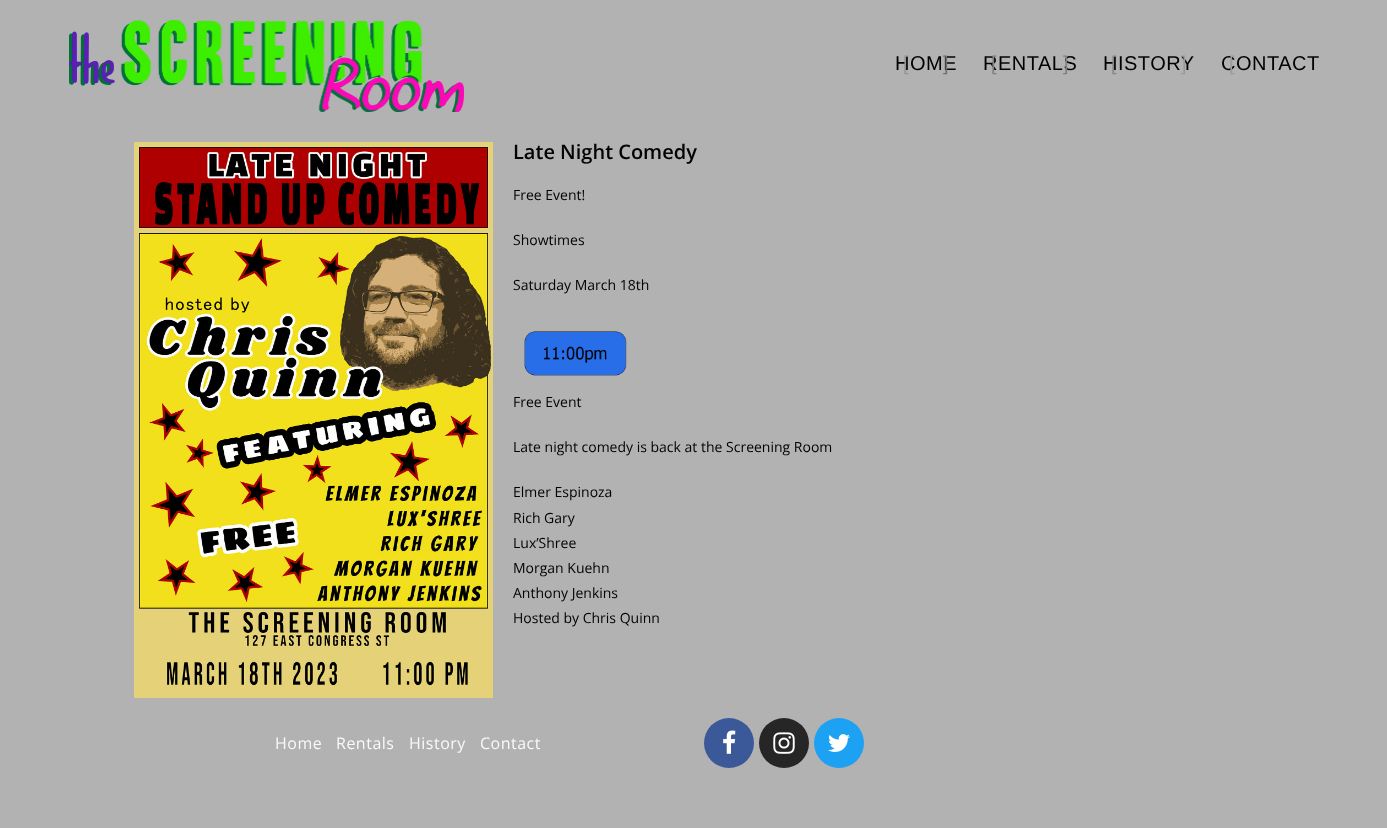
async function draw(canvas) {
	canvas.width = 1387;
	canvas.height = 828;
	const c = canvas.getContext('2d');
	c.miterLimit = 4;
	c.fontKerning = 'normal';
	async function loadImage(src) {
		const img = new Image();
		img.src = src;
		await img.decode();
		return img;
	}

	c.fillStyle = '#b2b2b2';
	c.fillRect(0, 0, 1387, 828);
	c.drawImage(await loadImage('img1.png'), 69, 20, 395, 92);
	c.letterSpacing = '0.5px';
	c.font = '20px Liberation Sans';
	c.fillStyle = '#020202';
	c.fillText('HOME', 895, 70);
	c.fillStyle = '#949494';
	c.fillText('[', 903, 70);
	c.fillStyle = '#707070';
	c.fillText(']', 943, 70);
	c.fillStyle = '#020202';
	c.fillText('RENTALS', 983, 70);
	c.fillStyle = '#808080';
	c.fillText('[', 991, 70);
	c.fillText(']', 1063, 70);
	c.fillStyle = '#020202';
	c.fillText('HISTORY', 1103, 70);
	c.fillStyle = '#878787';
	c.fillText('[', 1111, 70);
	c.fillStyle = '#9b9b9b';
	c.fillText(']', 1181, 70);
	c.fillStyle = '#020202';
	c.fillText('CONTACT', 1221, 70);
	c.fillStyle = '#9b9b9b';
	c.fillText('[', 1229, 70);
	c.drawImage(await loadImage('img2.png'), 134, 142, 359, 556);
	c.letterSpacing = '0px';
	c.font = '600 20px Open Sans';
	c.fillStyle = '#020202';
	c.fillText('Late Night Comedy', 513, 159);
	c.font = '14px Open Sans';
	for (const [text, x, y] of [
		['Free Event!', 513, 200],
		['Showtimes', 513, 245],
		['Saturday March 18th', 513, 290],
	]) {
		c.fillText(text, x, y);
	}
	c.drawImage(await loadImage('img3.png'), 524, 331, 103, 45);
	for (const [text, x, y] of [
		['Free Event', 513, 407],
		['Late night comedy is back at the Screening Room', 513, 452],
		['Elmer Espinoza', 513, 497],
		['Rich Gary', 513, 523],
		['Lux’Shree', 513, 548],
		['Morgan Kuehn', 513, 573],
		['Anthony Jenkins', 513, 598],
		['Hosted by Chris Quinn', 513, 623],
	]) {
		c.fillText(text, x, y);
	}
	c.letterSpacing = '0.5px';
	c.font = '16px Open Sans';
	c.fillStyle = '#f9f9f9';
	for (const [text, x, y] of [
		['Home', 275, 749],
		['Rentals', 336, 749],
		['History', 409, 749],
		['Contact', 480, 749],
	]) {
		c.fillText(text, x, y);
	}
	c.fillStyle = '#3b5998';
	c.beginPath();
	c.arc(729, 743, 25, 0, 2 * Math.PI);
	c.fill();
	c.drawImage(await loadImage('img4.png'), 723, 730, 13, 24);
	c.fillStyle = '#262626';
	c.beginPath();
	c.arc(784, 743, 25, 0, 2 * Math.PI);
	c.fill();
	c.drawImage(await loadImage('img5.png'), 773, 732, 22, 22);
	c.fillStyle = '#1da1f2';
	c.beginPath();
	c.arc(839, 743, 25, 0, 2 * Math.PI);
	c.fill();
	c.drawImage(await loadImage('img6.png'), 828, 734, 22, 18);
}

draw(document.querySelector('canvas'));
